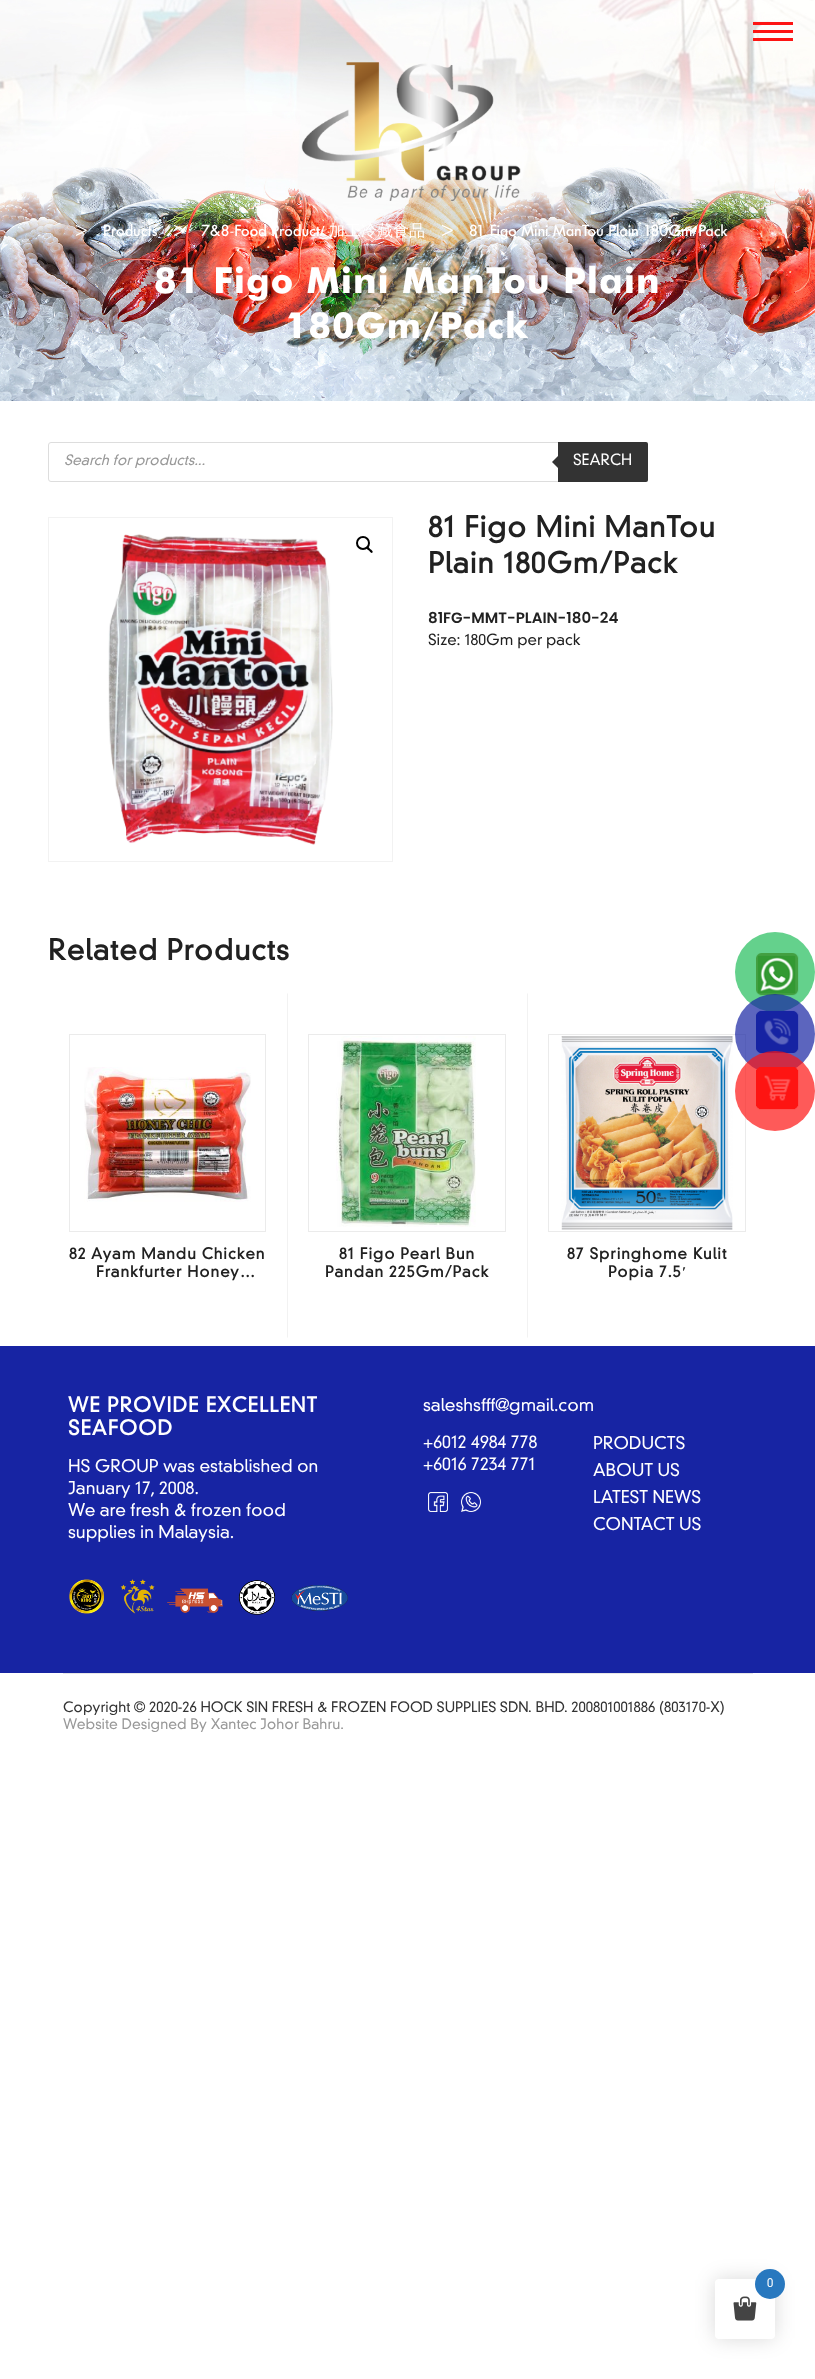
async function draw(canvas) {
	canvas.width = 815;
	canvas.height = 2379;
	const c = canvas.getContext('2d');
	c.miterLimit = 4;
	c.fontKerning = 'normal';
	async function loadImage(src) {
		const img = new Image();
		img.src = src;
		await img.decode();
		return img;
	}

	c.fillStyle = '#fff';
	c.fillRect(0, 0, 815, 2379);
	c.drawImage(await loadImage('img2.png'), 0, 0, 815, 401);
	for (const [x, y, w, h, color] of [
		[753, 30, 40, 3, '#fd1413'],
		[753, 22, 40, 3, '#fd1413'],
		[753, 38, 40, 3, '#fd1413'],
	]) {
		c.fillStyle = color;
		c.fillRect(x, y, w, h);
	}
	c.drawImage(await loadImage('img1.png'), 301, 62, 220, 139);
	c.font = '500 16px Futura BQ';
	c.fillStyle = '#fff';
	for (const [text, x, y] of [
		['>', 76, 236],
		['Products', 103, 236],
		['>', 174, 236],
		['7&8-Food Product/', 201, 236],
	]) {
		c.fillText(text, x, y);
	}
	c.font = '500 16px WenQuanYi Zen Hei';
	c.fillText('加工冷藏食品', 329, 236);
	c.font = '500 16px Futura BQ';
	c.fillText('>', 442, 236);
	c.fillText('81 Figo Mini ManTou Plain 180Gm/Pack', 469, 236);
	c.letterSpacing = '1px';
	c.font = 'bold 36px Futura';
	c.fillText('81 Figo Mini ManTou Plain', 154, 293);
	c.fillText('180Gm/Pack', 285, 338);
	c.beginPath();
	c.roundRect(48.5, 442.5, 599, 39, 2.5);
	c.strokeStyle = '#ddd';
	c.stroke();
	c.letterSpacing = '0px';
	c.font = 'italic 300 14px "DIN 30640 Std"';
	c.fillStyle = '#999';
	c.fillText('Search for products...', 64, 465);
	c.fillStyle = '#333';
	c.beginPath();
	c.roundRect(558, 442, 90, 40, [0, 2, 2, 0]);
	c.fill();
	c.beginPath();
	c.moveTo(560, 454);
	c.lineTo(560, 470);
	c.lineTo(552, 462);
	c.closePath();
	c.fill();
	c.font = '300 15px "DIN 30640 Std"';
	c.fillStyle = '#fff';
	c.fillText('SEARCH', 573, 465);
	c.strokeStyle = '#f2f2f2';
	c.strokeRect(48.5, 517.5, 344, 344);
	c.drawImage(await loadImage('img3.png'), 108, 534, 225, 311);
	c.beginPath();
	c.arc(363, 543, 6, 0, 2 * Math.PI);
	c.strokeStyle = '#000';
	c.lineWidth = 2;
	c.stroke();
	c.fillStyle = '#000';
	c.beginPath();
	c.moveTo(366.5, 547);
	c.bezierCurveTo(368, 545.5, 369.5, 548.5, 370, 549);
	c.bezierCurveTo(371, 549.5, 373.5, 551.5, 372.5, 552.5);
	c.bezierCurveTo(371, 554, 369.5, 551, 369, 550.5);
	c.bezierCurveTo(368, 550, 365.5, 548, 366.5, 547);
	c.closePath();
	c.fill();
	c.letterSpacing = '1px';
	c.font = 'bold 28px "DIN 30640 Std"';
	c.fillStyle = '#212121';
	c.fillText('81 Figo Mini ManTou', 428, 537);
	c.fillText('Plain 180Gm/Pack', 428, 573);
	c.letterSpacing = '0px';
	c.font = '600 15px Poppins';
	c.fillText('81FG-MMT-PLAIN-180-24', 428, 623);
	c.font = '300 15px "DIN 30640 Std"';
	c.fillText('Size: 180Gm per pack', 428, 645);
	c.letterSpacing = '1px';
	c.font = 'bold 28px "DIN 30640 Std"';
	c.fillText('Related Products', 48, 960);
	c.strokeStyle = '#ebebeb';
	c.lineWidth = 1;
	c.strokeRect(69.5, 1034.5, 196, 197);
	c.drawImage(await loadImage('img4.png'), 84, 1067, 167, 135);
	c.font = 'bold 15px "DIN 30640 Std"';
	c.fillText('82 Ayam Mandu Chicken', 69, 1259);
	c.fillText('Frankfurter Honey…', 96, 1277);
	c.fillStyle = '#f2f2f2';
	c.beginPath();
	c.moveTo(287, 1338);
	c.lineTo(287, 993);
	c.lineTo(288, 994);
	c.lineTo(288, 1337);
	c.closePath();
	c.fill();
	c.strokeRect(308.5, 1034.5, 197, 197);
	c.drawImage(await loadImage('img5.png'), 336, 1036, 140, 191);
	c.fillStyle = '#212121';
	c.fillText('81 Figo Pearl Bun', 339, 1259);
	c.fillText('Pandan 225Gm/Pack', 325, 1277);
	c.fillStyle = '#f2f2f2';
	c.beginPath();
	c.moveTo(527, 1338);
	c.lineTo(527, 993);
	c.lineTo(528, 994);
	c.lineTo(528, 1337);
	c.closePath();
	c.fill();
	c.strokeRect(548.5, 1034.5, 197, 197);
	c.drawImage(await loadImage('img6.png'), 561, 1036, 172, 194);
	c.fillStyle = '#212121';
	c.fillText('87 Springhome Kulit', 567, 1259);
	c.fillText('Popia 7.5', 608, 1277);
	c.font = 'bold 15px Liberation Serif';
	c.fillText('′', 682, 1277);
	c.fillStyle = '#64d18c';
	c.beginPath();
	c.arc(775, 972, 40, 0, 2 * Math.PI);
	c.fill();
	c.drawImage(await loadImage('img7.png'), 756, 953, 43, 43);
	c.drawImage(await loadImage('img8.png'), 756, 1010, 43, 44);
	c.fillStyle = '#1724a3b3';
	c.beginPath();
	c.arc(775, 1034, 40, 0, 2 * Math.PI);
	c.fill();
	c.drawImage(await loadImage('img9.png'), 756, 1067, 43, 43);
	c.fillStyle = '#fd1413b3';
	c.beginPath();
	c.arc(775, 1091, 40, 0, 2 * Math.PI);
	c.fill();
	c.fillStyle = '#1724a3';
	c.fillRect(0, 1346, 815, 327);
	c.font = 'bold 20px "DIN 30640 Std"';
	c.fillStyle = '#fff';
	c.fillText('WE PROVIDE EXCELLENT', 68, 1412);
	c.fillText('SEAFOOD', 68, 1435);
	c.letterSpacing = '0px';
	c.font = '300 17px "DIN 30640 Std"';
	for (const [text, x, y] of [
		['HS GROUP was established on', 68, 1472],
		['January 17, 2008.', 68, 1494],
		['We are fresh & frozen food', 68, 1516],
		['supplies in Malaysia.', 68, 1538],
	]) {
		c.fillText(text, x, y);
	}
	c.drawImage(await loadImage('img10.png'), 69, 1579, 279, 36);
	for (const [text, x, y] of [
		['saleshsfff@gmail.com', 423, 1411],
		['+6012 4984 778', 423, 1448],
		['+6016 7234 771', 423, 1470],
	]) {
		c.fillText(text, x, y);
	}
	c.drawImage(await loadImage('img11.png'), 428, 1492, 20, 20);
	c.drawImage(await loadImage('img12.png'), 461, 1492, 20, 20);
	for (const [text, x, y] of [
		['PRODUCTS', 593, 1449],
		['ABOUT US', 593, 1476],
		['LATEST NEWS', 593, 1503],
		['CONTACT US', 593, 1530],
	]) {
		c.fillText(text, x, y);
	}
	c.fillStyle = '#e6e6e6';
	c.fillRect(63, 1673, 690, 1);
	c.font = '300 14px "DIN 30640 Std"';
	c.fillStyle = '#333';
	c.fillText('Copyright © 2020-26 HOCK SIN FRESH & FROZEN FOOD SUPPLIES SDN. BHD. 200801001886 (803170-X)', 63, 1712);
	c.fillStyle = '#999';
	c.fillText('Website Designed By Xantec Johor Bahru.', 63, 1729);
	c.fillStyle = '#00000026';
	c.filter = 'blur(10px)';
	c.beginPath();
	c.roundRect(715, 2279, 60, 60, 4);
	c.fill();
	c.filter = 'none';
	c.fillStyle = '#fff';
	c.beginPath();
	c.roundRect(715, 2279, 60, 60, 4);
	c.fill();
	c.drawImage(await loadImage('img13.png'), 733, 2296, 24, 25);
	c.fillStyle = '#2878bf';
	c.beginPath();
	c.arc(770, 2284, 15, 0, 2 * Math.PI);
	c.fill();
	c.font = '300 12px "DIN 30640 Std"';
	c.fillStyle = '#fff';
	c.fillText('0', 767, 2287);
}

draw(document.querySelector('canvas'));
